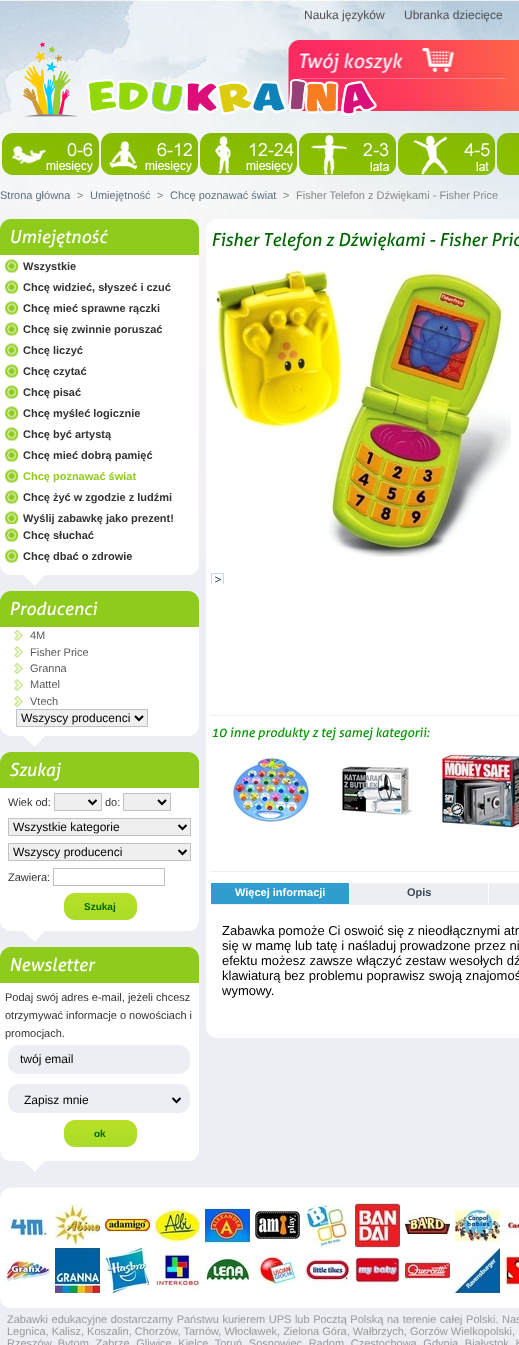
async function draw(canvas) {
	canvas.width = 519;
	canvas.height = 1345;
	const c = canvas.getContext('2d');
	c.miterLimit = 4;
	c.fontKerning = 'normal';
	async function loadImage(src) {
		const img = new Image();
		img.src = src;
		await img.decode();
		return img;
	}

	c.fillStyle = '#edeef3';
	c.fillRect(0, 0, 519, 1345);
	c.drawImage(await loadImage('img1.png'), 0, 0, 519, 559);
	c.font = '12px Liberation Sans';
	c.fillStyle = '#4f4f4f';
	c.fillText('Nauka języków', 304, 19);
	c.fillText('Ubranka dziecięce', 404, 19);
	c.drawImage(await loadImage('img2.png'), 23, 42, 354, 75);
	c.drawImage(await loadImage('img3.png'), 2, 133, 97, 42);
	c.drawImage(await loadImage('img4.png'), 101, 133, 97, 42);
	c.drawImage(await loadImage('img5.png'), 200, 133, 97, 42);
	c.drawImage(await loadImage('img6.png'), 299, 133, 97, 42);
	c.drawImage(await loadImage('img7.png'), 398, 133, 97, 42);
	c.drawImage(await loadImage('img8.png'), 497, 133, 22, 42);
	c.font = '11px Liberation Sans';
	c.fillStyle = '#5d717e';
	c.fillText('Strona główna', 0, 199);
	c.fillStyle = '#888';
	c.fillText('>', 77, 199);
	c.fillStyle = '#5d717e';
	c.fillText('Umiejętność', 90, 199);
	c.fillStyle = '#888';
	c.fillText('>', 157, 199);
	c.fillStyle = '#5d717e';
	c.fillText('Chcę poznawać świat', 170, 199);
	c.fillStyle = '#888';
	c.fillText('>', 283, 199);
	c.fillText('Fisher Telefon z Dźwiękami - Fisher Price', 296, 199);
	c.drawImage(await loadImage('img9.png'), 0, 566, 199, 20);
	c.fillStyle = '#fff';
	c.fillRect(0, 255, 199, 311);
	c.drawImage(await loadImage('img10.png'), 0, 219, 199, 36);
	c.font = 'italic 18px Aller';
	c.fillText('Umiejętność', 9, 243);
	c.drawImage(await loadImage('img11.png'), 5, 259, 13, 14);
	c.font = 'bold 11px Liberation Sans';
	c.fillStyle = '#333';
	c.fillText('Wszystkie', 23, 270);
	c.drawImage(await loadImage('img11.png'), 5, 280, 13, 14);
	c.fillText('Chcę widzieć, słyszeć i czuć', 23, 291);
	c.drawImage(await loadImage('img11.png'), 5, 301, 13, 14);
	c.fillText('Chcę mieć sprawne rączki', 23, 312);
	c.drawImage(await loadImage('img11.png'), 5, 322, 13, 14);
	c.fillText('Chcę się zwinnie poruszać', 23, 333);
	c.drawImage(await loadImage('img11.png'), 5, 343, 13, 14);
	c.fillText('Chcę liczyć', 23, 354);
	c.drawImage(await loadImage('img11.png'), 5, 364, 13, 14);
	c.fillText('Chcę czytać', 23, 375);
	c.drawImage(await loadImage('img11.png'), 5, 385, 13, 14);
	c.fillText('Chcę pisać', 23, 396);
	c.drawImage(await loadImage('img11.png'), 5, 406, 13, 14);
	c.fillText('Chcę myśleć logicznie', 23, 417);
	c.drawImage(await loadImage('img11.png'), 5, 427, 13, 14);
	c.fillText('Chcę być artystą', 23, 438);
	c.drawImage(await loadImage('img11.png'), 5, 448, 13, 14);
	c.fillText('Chcę mieć dobrą pamięć', 23, 459);
	c.drawImage(await loadImage('img11.png'), 5, 469, 13, 14);
	c.fillStyle = '#8fcb1d';
	c.fillText('Chcę poznawać świat', 23, 480);
	c.drawImage(await loadImage('img11.png'), 5, 490, 13, 14);
	c.fillStyle = '#333';
	c.fillText('Chcę żyć w zgodzie z ludźmi', 23, 501);
	c.drawImage(await loadImage('img12.png'), 5, 511, 13, 13);
	c.fillText('Wyślij zabawkę jako prezent!', 23, 522);
	c.drawImage(await loadImage('img11.png'), 5, 528, 13, 14);
	c.fillText('Chcę słuchać', 23, 539);
	c.drawImage(await loadImage('img11.png'), 5, 549, 13, 14);
	c.fillText('Chcę dbać o zdrowie', 23, 560);
	c.drawImage(await loadImage('img9.png'), 0, 727, 199, 20);
	c.drawImage(await loadImage('img10.png'), 0, 591, 199, 36);
	c.font = 'italic 18px Aller';
	c.fillStyle = '#fff';
	c.fillText('Producenci', 9, 615);
	c.fillRect(0, 627, 199, 100);
	c.drawImage(await loadImage('img13.png'), 14, 630, 9, 11);
	c.font = '11px Liberation Sans';
	c.fillStyle = '#595a5e';
	c.fillText('4M', 30, 639);
	c.drawImage(await loadImage('img14.png'), 14, 646, 9, 12);
	c.fillText('Fisher Price', 30, 656);
	c.drawImage(await loadImage('img13.png'), 14, 663, 9, 11);
	c.fillText('Granna', 30, 672);
	c.drawImage(await loadImage('img14.png'), 14, 679, 9, 12);
	c.fillText('Mattel', 30, 688);
	c.drawImage(await loadImage('img13.png'), 14, 696, 9, 11);
	c.fillText('Vtech', 30, 705);
	c.fillStyle = '#efefef';
	c.beginPath();
	c.rect(16.5, 709.5, 131, 17);
	c.fill();
	c.strokeStyle = '#bdc2c9';
	c.stroke();
	c.beginPath();
	c.moveTo(135, 716);
	c.lineTo(139, 720);
	c.lineTo(143, 716);
	c.strokeStyle = '#000';
	c.lineWidth = 2;
	c.stroke();
	c.font = '12px Liberation Sans';
	c.fillStyle = '#000';
	c.fillText('Wszyscy producenci', 21, 722);
	c.drawImage(await loadImage('img9.png'), 0, 922, 199, 20);
	c.drawImage(await loadImage('img10.png'), 0, 752, 199, 36);
	c.font = 'italic 18px Aller';
	c.fillStyle = '#fff';
	c.fillText('Szukaj', 9, 776);
	c.fillRect(0, 788, 199, 134);
	c.font = '11px Liberation Sans';
	c.fillStyle = '#333';
	c.fillText('Wiek od:', 8, 806);
	c.fillStyle = '#efefef';
	c.beginPath();
	c.rect(54.5, 793.5, 47, 17);
	c.fill();
	c.strokeStyle = '#bdc2c9';
	c.lineWidth = 1;
	c.stroke();
	c.beginPath();
	c.moveTo(88.5, 800);
	c.lineTo(92.5, 804);
	c.lineTo(96.5, 800);
	c.strokeStyle = '#000';
	c.lineWidth = 2;
	c.stroke();
	c.fillStyle = '#333';
	c.fillText('do:', 105, 806);
	c.fillStyle = '#efefef';
	c.beginPath();
	c.rect(123.5, 793.5, 47, 17);
	c.fill();
	c.strokeStyle = '#bdc2c9';
	c.lineWidth = 1;
	c.stroke();
	c.beginPath();
	c.moveTo(158, 800);
	c.lineTo(162, 804);
	c.lineTo(166, 800);
	c.strokeStyle = '#000';
	c.lineWidth = 2;
	c.stroke();
	c.beginPath();
	c.rect(8.5, 818.5, 182, 17);
	c.fill();
	c.strokeStyle = '#bdc2c9';
	c.lineWidth = 1;
	c.stroke();
	c.beginPath();
	c.moveTo(178.5, 825);
	c.lineTo(182.5, 829);
	c.lineTo(186.5, 825);
	c.strokeStyle = '#000';
	c.lineWidth = 2;
	c.stroke();
	c.font = '12px Liberation Sans';
	c.fillStyle = '#000';
	c.fillText('Wszystkie kategorie', 13, 831);
	c.fillStyle = '#efefef';
	c.beginPath();
	c.rect(8.5, 843.5, 182, 17);
	c.fill();
	c.strokeStyle = '#bdc2c9';
	c.lineWidth = 1;
	c.stroke();
	c.beginPath();
	c.moveTo(178.5, 850);
	c.lineTo(182.5, 854);
	c.lineTo(186.5, 850);
	c.strokeStyle = '#000';
	c.lineWidth = 2;
	c.stroke();
	c.fillStyle = '#000';
	c.fillText('Wszyscy producenci', 13, 856);
	c.font = '11px Liberation Sans';
	c.fillStyle = '#333';
	c.fillText('Zawiera:', 8, 881);
	c.strokeStyle = '#bdc2c9';
	c.lineWidth = 1;
	c.strokeRect(53.5, 868.5, 111, 17);
	c.drawImage(await loadImage('img15.png'), 64, 893, 73, 27);
	c.font = 'bold 10px Liberation Sans';
	c.fillStyle = '#060';
	c.fillText('Szukaj', 84, 910);
	c.drawImage(await loadImage('img9.png'), 0, 1152, 199, 20);
	c.drawImage(await loadImage('img10.png'), 0, 947, 199, 36);
	c.font = 'italic 18px Aller';
	c.fillStyle = '#fff';
	c.fillText('Newsletter', 9, 971);
	c.fillRect(0, 983, 199, 169);
	c.font = '11px Liberation Sans';
	c.fillStyle = '#333';
	for (const [text, x, y] of [
		['Podaj swój adres e-mail, jeżeli chcesz', 5, 1001],
		['otrzymywać informacje o nowościach i', 5, 1019],
		['promocjach.', 5, 1037],
	]) {
		c.fillText(text, x, y);
	}
	c.drawImage(await loadImage('img16.png'), 8, 1045, 182, 29);
	c.font = '12px Liberation Sans';
	c.fillStyle = '#000';
	c.fillText('twój email', 20, 1063);
	c.drawImage(await loadImage('img16.png'), 8, 1084, 182, 29);
	c.beginPath();
	c.moveTo(172.5, 1098);
	c.lineTo(176.5, 1102);
	c.lineTo(180.5, 1098);
	c.strokeStyle = '#000';
	c.lineWidth = 2;
	c.stroke();
	c.fillText('Zapisz mnie', 24, 1104);
	c.drawImage(await loadImage('img15.png'), 64, 1120, 73, 27);
	c.font = 'bold 10px Liberation Sans';
	c.fillStyle = '#060';
	c.fillText('ok', 94, 1137);
	c.drawImage(await loadImage('img17.png'), 206, 219, 313, 10);
	c.drawImage(await loadImage('img18.png'), 206, 1027, 313, 11);
	c.fillStyle = '#fff';
	c.fillRect(206, 229, 313, 798);
	c.fillStyle = '#edeef3';
	c.fillRect(211, 715, 308, 1);
	c.font = 'italic 18px Aller';
	c.fillStyle = '#060';
	c.fillText('Fisher Telefon z Dźwiękami - Fisher Pric', 211, 246);
	c.drawImage(await loadImage('img19.png'), 211, 268, 300, 289);
	c.drawImage(await loadImage('img20.png'), 211, 573, 13, 11);
	c.font = 'italic 13px Aller';
	c.fillStyle = '#090';
	c.fillText('10 inne produkty z tej samej kategorii:', 211, 737);
	c.fillStyle = '#edeef3';
	c.fillRect(211, 871, 308, 1);
	c.drawImage(await loadImage('img21.png'), 231, 756, 79, 67);
	c.drawImage(await loadImage('img22.png'), 340, 766, 73, 49);
	c.drawImage(await loadImage('img23.png'), 442, 754, 77, 75);
	c.fillRect(211, 904, 308, 1);
	c.fillStyle = '#309dcf';
	c.fillRect(211, 883, 138, 21);
	c.font = 'bold 11px Liberation Sans';
	c.fillStyle = '#fff';
	c.fillText('Więcej informacji', 235, 896);
	c.fillStyle = '#edeef3';
	c.fillRect(350, 883, 138, 21);
	c.fillStyle = '#374853';
	c.fillText('Opis', 407, 896);
	c.fillStyle = '#edeef3';
	c.fillRect(489, 883, 30, 21);
	c.font = '13px Liberation Sans';
	c.fillStyle = '#000';
	for (const [text, x, y] of [
		['Zabawka pomoże Ci oswoić się z nieodłącznymi atr', 222, 935],
		['się w mamę lub tatę i naśladuj prowadzone przez ni', 222, 950],
		['efektu możesz zawsze włączyć zestaw wesołych dź', 222, 965],
		['klawiaturą bez problemu poprawisz swoją znajomoś', 222, 980],
		['wymowy.', 222, 995],
	]) {
		c.fillText(text, x, y);
	}
	c.drawImage(await loadImage('img24.png'), 0, 1187, 519, 11);
	c.drawImage(await loadImage('img25.png'), 0, 1298, 519, 10);
	c.fillStyle = '#fff';
	c.fillRect(0, 1198, 519, 100);
	c.drawImage(await loadImage('img26.png'), 5, 1211, 45, 32);
	c.drawImage(await loadImage('img27.png'), 55, 1203, 45, 45);
	c.drawImage(await loadImage('img28.png'), 105, 1216, 45, 18);
	c.drawImage(await loadImage('img29.png'), 155, 1207, 45, 41);
	c.drawImage(await loadImage('img30.png'), 205, 1203, 45, 42);
	c.drawImage(await loadImage('img31.png'), 255, 1210, 45, 32);
	c.drawImage(await loadImage('img32.png'), 305, 1204, 45, 44);
	c.drawImage(await loadImage('img33.png'), 355, 1203, 45, 45);
	c.drawImage(await loadImage('img34.png'), 405, 1214, 45, 32);
	c.drawImage(await loadImage('img35.png'), 455, 1204, 45, 41);
	c.drawImage(await loadImage('img36.png'), 505, 1219, 14, 16);
	c.drawImage(await loadImage('img37.png'), 5, 1260, 45, 30);
	c.drawImage(await loadImage('img38.png'), 55, 1248, 45, 45);
	c.drawImage(await loadImage('img39.png'), 105, 1248, 45, 45);
	c.drawImage(await loadImage('img40.png'), 155, 1248, 45, 45);
	c.drawImage(await loadImage('img41.png'), 205, 1253, 45, 29);
	c.drawImage(await loadImage('img42.png'), 255, 1248, 45, 45);
	c.drawImage(await loadImage('img43.png'), 305, 1254, 45, 32);
	c.drawImage(await loadImage('img44.png'), 355, 1257, 45, 31);
	c.drawImage(await loadImage('img45.png'), 405, 1256, 45, 32);
	c.drawImage(await loadImage('img46.png'), 455, 1248, 45, 45);
	c.drawImage(await loadImage('img47.png'), 505, 1248, 14, 44);
	c.wordSpacing = '0.5px';
	c.font = '11px Liberation Sans';
	c.fillStyle = '#999';
	c.fillText('Zabawki edukacyjne dostarczamy Państwu kurierem UPS lub Pocztą Polską na terenie całej Polski. Nas', 7, 1323);
	c.wordSpacing = '0px';
	c.fillText('Legnica, Kalisz, Koszalin, Chorzów, Tarnów, Włocławek, Zielona Góra, Wałbrzych, Gorzów Wielkopolski,', 7, 1335);
	c.wordSpacing = '0.5px';
	c.fillText('Rzeszów, Bytom, Zabrze, Gliwice, Kielce, Toruń, Sosnowiec, Radom, Częstochowa, Gdynia, Białystok, K', 7, 1347);
}

draw(document.querySelector('canvas'));
